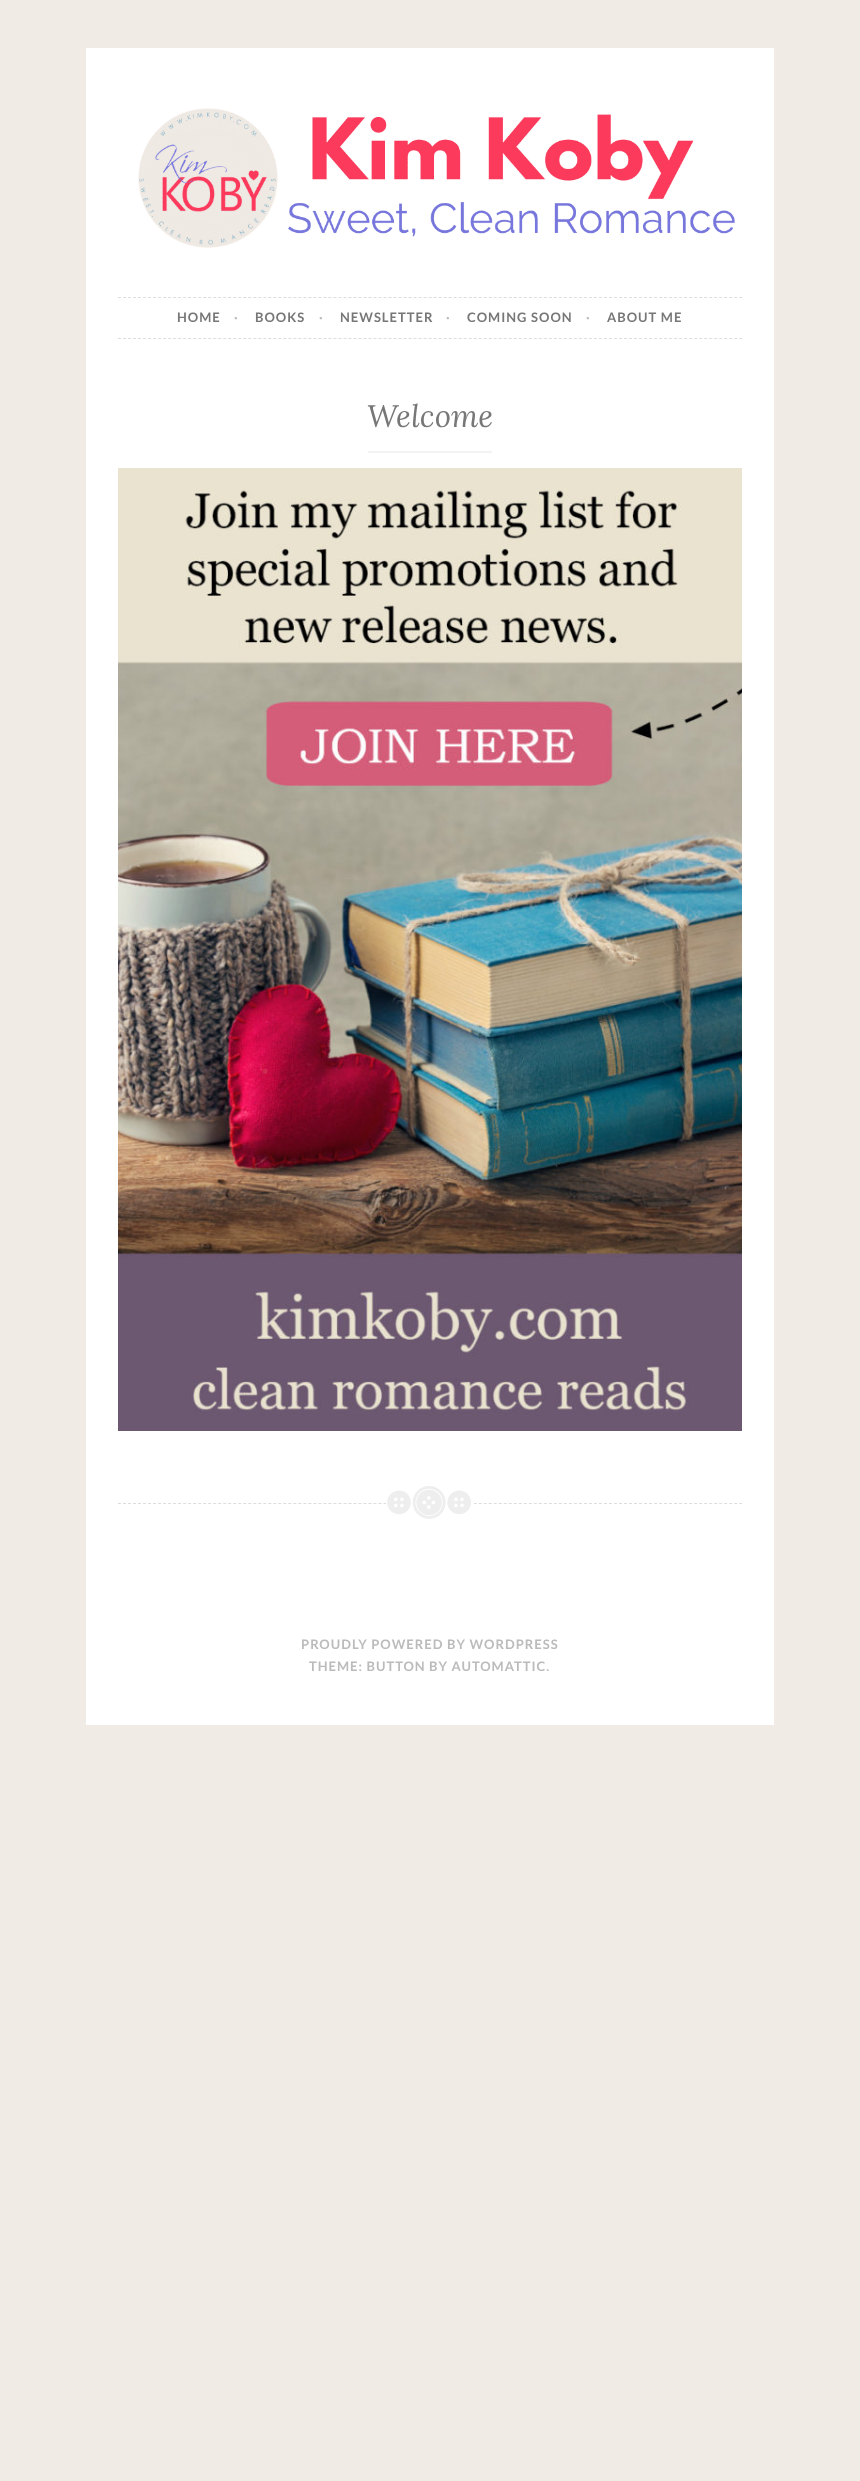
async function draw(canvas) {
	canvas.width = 860;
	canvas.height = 2481;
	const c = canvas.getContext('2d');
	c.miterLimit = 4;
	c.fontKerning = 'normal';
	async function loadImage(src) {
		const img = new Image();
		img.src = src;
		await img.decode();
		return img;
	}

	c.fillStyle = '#f1ebe5';
	c.fillRect(0, 0, 860, 2481);
	c.fillStyle = '#fff';
	c.fillRect(86, 48, 688, 1677);
	c.drawImage(await loadImage('img1.png'), 138, 108, 597, 140);
	c.beginPath();
	c.moveTo(118, 297.5);
	c.lineTo(742, 297.5);
	c.strokeStyle = '#ddd';
	c.setLineDash([3, 2.01]);
	c.stroke();
	c.beginPath();
	c.moveTo(118, 338.5);
	c.lineTo(742, 338.5);
	c.stroke();
	c.letterSpacing = '1px';
	c.font = 'bold 13px Lato';
	c.fillStyle = '#777';
	c.fillText('HOME', 177, 322);
	c.fillStyle = '#bbb';
	c.fillText('·', 234, 322);
	c.fillStyle = '#777';
	c.fillText('BOOKS', 255, 322);
	c.fillStyle = '#bbb';
	c.fillText('·', 319, 322);
	c.fillStyle = '#777';
	c.fillText('NEWSLETTER', 340, 322);
	c.fillStyle = '#bbb';
	c.fillText('·', 446, 322);
	c.fillStyle = '#777';
	c.fillText('COMING SOON', 467, 322);
	c.fillStyle = '#bbb';
	c.fillText('·', 586, 322);
	c.fillStyle = '#777';
	c.fillText('ABOUT ME', 607, 322);
	c.beginPath();
	c.moveTo(118, 1503.5);
	c.lineTo(742, 1503.5);
	c.stroke();
	c.letterSpacing = '0px';
	c.font = 'italic 31.25px Lora';
	c.fillText('Welcome', 367, 427);
	c.fillStyle = '#f3f3f3';
	c.fillRect(368, 451, 124, 2);
	c.drawImage(await loadImage('img2.png'), 118, 468, 624, 963);
	c.fillStyle = '#fff';
	c.fillRect(386, 1503, 88, 1);
	c.drawImage(await loadImage('img3.png'), 387, 1486, 84, 33);
	c.letterSpacing = '1px';
	c.font = 'bold 13px Lato';
	c.fillStyle = '#bbb';
	c.fillText('PROUDLY POWERED BY WORDPRESS', 301, 1649);
	c.fillText('THEME: BUTTON BY AUTOMATTIC.', 309, 1671);
}

draw(document.querySelector('canvas'));
